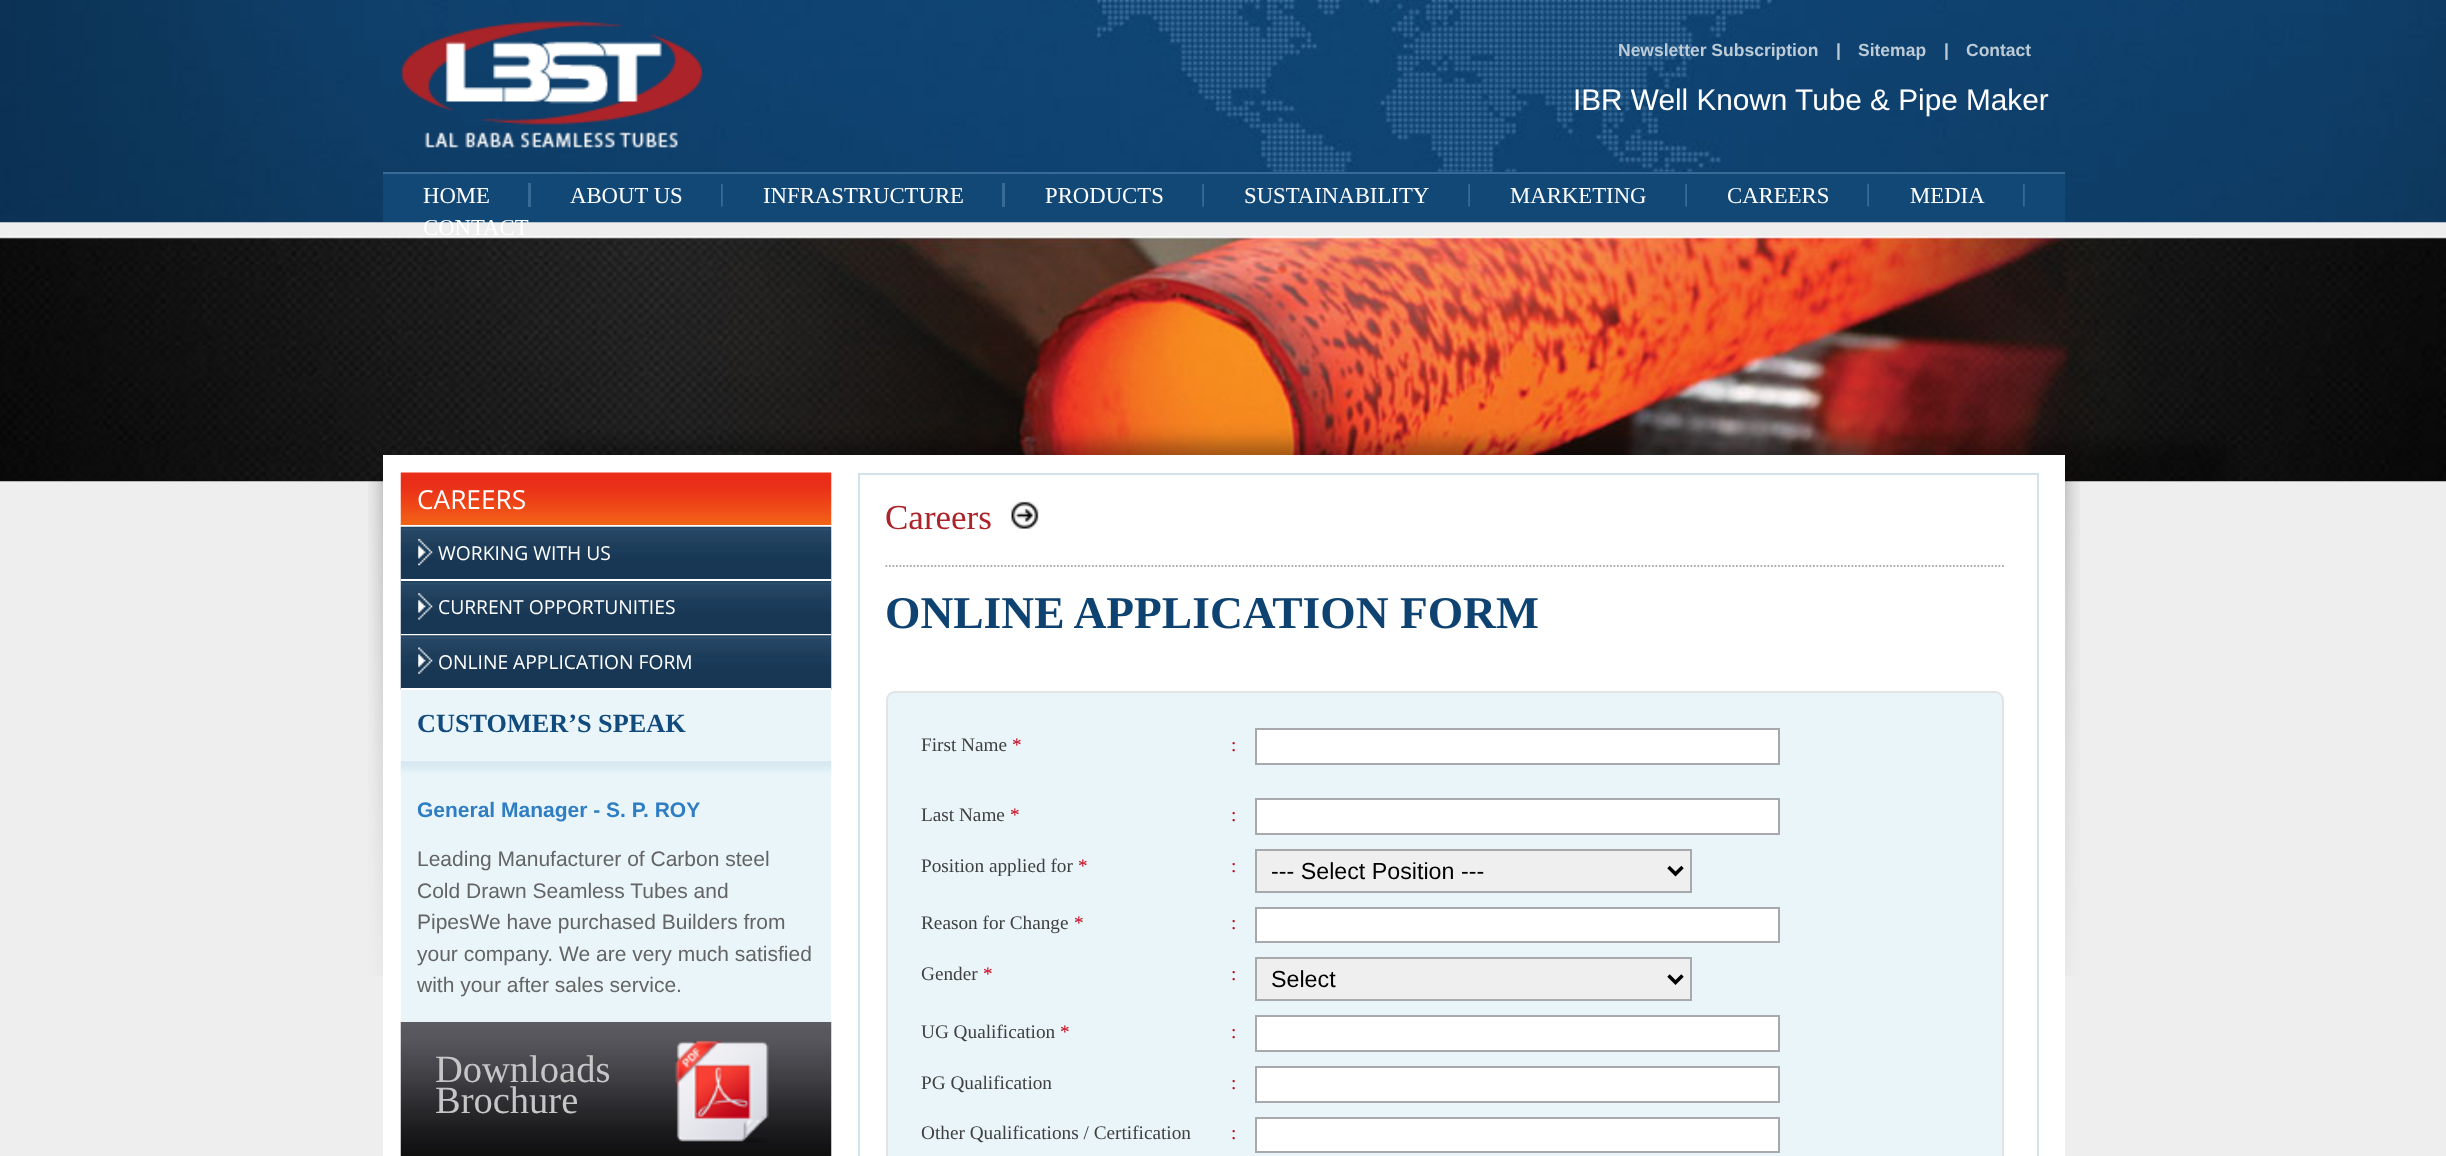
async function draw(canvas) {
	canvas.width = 2446;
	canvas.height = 1156;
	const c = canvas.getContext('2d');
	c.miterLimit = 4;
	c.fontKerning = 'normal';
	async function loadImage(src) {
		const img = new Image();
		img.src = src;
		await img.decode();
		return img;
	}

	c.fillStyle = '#eee';
	c.fillRect(0, 0, 2446, 1156);
	c.drawImage(await loadImage('img1.png'), 0, 0, 2446, 223);
	c.drawImage(await loadImage('img2.png'), 400, 20, 303, 128);
	c.font = 'bold 17.5px Liberation Sans';
	c.fillStyle = '#bccbd6';
	for (const [text, x, y] of [
		['Newsletter Subscription', 1618, 56],
		['|', 1836, 56],
		['Sitemap', 1858, 56],
		['|', 1944, 56],
		['Contact', 1966, 56],
	]) {
		c.fillText(text, x, y);
	}
	c.font = '29.75px Liberation Sans';
	c.fillStyle = '#fff';
	c.fillText('IBR Well Known Tube & Pipe Maker', 1573, 110);
	c.fillStyle = '#124876';
	c.fillRect(383, 174, 1682, 48);
	c.fillStyle = '#386a96';
	c.fillRect(383, 172, 1682, 2);
	c.font = '22.75px Liberation Serif';
	c.fillStyle = '#fff';
	c.fillText('HOME', 423, 203);
	c.fillStyle = '#386a96';
	c.fillRect(528, 183, 3, 24);
	c.fillStyle = '#fff';
	c.fillText('ABOUT US', 570, 203);
	c.drawImage(await loadImage('img3.png'), 721, 183, 2, 24);
	c.fillText('INFRASTRUCTURE', 763, 203);
	c.fillStyle = '#386a96';
	c.fillRect(1002, 183, 3, 24);
	c.fillStyle = '#fff';
	c.fillText('PRODUCTS', 1045, 203);
	c.drawImage(await loadImage('img4.png'), 1202, 183, 2, 24);
	c.fillText('SUSTAINABILITY', 1244, 203);
	c.drawImage(await loadImage('img4.png'), 1468, 183, 2, 24);
	c.fillText('MARKETING', 1510, 203);
	c.drawImage(await loadImage('img4.png'), 1685, 183, 2, 24);
	c.fillText('CAREERS', 1727, 203);
	c.drawImage(await loadImage('img4.png'), 1867, 183, 2, 24);
	c.fillText('MEDIA', 1910, 203);
	c.drawImage(await loadImage('img3.png'), 2023, 183, 2, 24);
	c.fillText('CONTACT', 423, 235);
	c.drawImage(await loadImage('img5.png'), 0, 236, 2446, 246);
	c.drawImage(await loadImage('img6.png'), 368, 474, 15, 502);
	c.fillRect(383, 455, 1682, 701);
	c.drawImage(await loadImage('img7.png'), 400, 472, 432, 53);
	c.font = '26.25px Open Sans';
	c.fillText('CAREERS', 417, 509);
	c.drawImage(await loadImage('img8.png'), 400, 526, 432, 55);
	c.fillRect(401, 579, 430, 2);
	c.drawImage(await loadImage('img9.png'), 418, 539, 15, 27);
	c.font = '19.25px Open Sans';
	c.fillText('WORKING WITH US', 438, 560);
	c.drawImage(await loadImage('img10.png'), 400, 581, 432, 55);
	c.fillRect(401, 634, 430, 2);
	c.drawImage(await loadImage('img11.png'), 418, 593, 15, 27);
	c.fillText('CURRENT OPPORTUNITIES', 438, 614);
	c.drawImage(await loadImage('img12.png'), 400, 635, 432, 55);
	c.fillRect(401, 688, 430, 2);
	c.drawImage(await loadImage('img13.png'), 418, 647, 15, 27);
	c.fillText('ONLINE APPLICATION FORM', 438, 669);
	c.fillStyle = '#eaf5fa';
	c.fillRect(401, 690, 430, 332);
	c.drawImage(await loadImage('img14.png'), 400, 761, 432, 16);
	c.font = 'bold 26.25px Liberation Serif';
	c.fillStyle = '#114b7e';
	c.fillText('CUSTOMER’S SPEAK', 417, 732);
	c.font = 'bold 21px Liberation Sans';
	c.fillStyle = '#2f7ec3';
	c.fillText('General Manager - S. P. ROY', 417, 817);
	c.font = '21px Liberation Sans';
	c.fillStyle = '#646464';
	for (const [text, x, y] of [
		['Leading Manufacturer of Carbon steel', 417, 866],
		['Cold Drawn Seamless Tubes and', 417, 898],
		['PipesWe have purchased Builders from', 417, 929],
		['your company. We are very much satisfied', 417, 961],
		['with your after sales service.', 417, 992],
	]) {
		c.fillText(text, x, y);
	}
	c.drawImage(await loadImage('img15.png'), 400, 1022, 432, 134);
	c.font = '38.5px Liberation Serif';
	c.fillStyle = '#c6c6c6';
	c.fillText('Downloads', 435, 1082);
	c.fillText('Brochure', 435, 1113);
	c.drawImage(await loadImage('img16.png'), 675, 1040, 94, 103);
	c.strokeStyle = '#d1e2ea';
	c.lineWidth = 2;
	c.strokeRect(859, 474, 1179, 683);
	c.beginPath();
	c.moveTo(885.5, 566);
	c.lineTo(2005.5, 566);
	c.strokeStyle = '#adadad';
	c.lineWidth = 1.8;
	c.setLineDash([1.75, 1.75]);
	c.stroke();
	c.font = '35px Liberation Serif';
	c.fillStyle = '#ac2329';
	c.fillText('Careers', 885, 529);
	c.drawImage(await loadImage('img17.png'), 1010, 501, 29, 28);
	c.font = 'bold 45.5px Liberation Serif';
	c.fillStyle = '#0e4271';
	c.fillText('ONLINE APPLICATION FORM', 885, 628);
	c.fillStyle = '#eaf5fa';
	c.beginPath();
	c.roundRect(887, 692, 1116, 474, 8);
	c.fill();
	c.strokeStyle = '#e3e3e3';
	c.lineWidth = 2;
	c.setLineDash([]);
	c.stroke();
	c.font = '19.25px Liberation Serif';
	c.fillStyle = '#404040';
	c.fillText('First Name', 921, 751);
	c.fillStyle = '#c70017';
	c.fillText('*', 1012, 751);
	c.fillText(':', 1231, 751);
	c.fillStyle = '#fff';
	c.beginPath();
	c.rect(1256, 729, 523, 35);
	c.fill();
	c.strokeStyle = '#a7a9ac';
	c.stroke();
	c.fillStyle = '#404040';
	c.fillText('Last Name', 921, 821);
	c.fillStyle = '#c70017';
	c.fillText('*', 1010, 821);
	c.fillText(':', 1231, 821);
	c.fillStyle = '#fff';
	c.beginPath();
	c.rect(1256, 799, 523, 35);
	c.fill();
	c.stroke();
	c.fillStyle = '#404040';
	c.fillText('Position applied for', 921, 872);
	c.fillStyle = '#c70017';
	c.fillText('*', 1078, 872);
	c.fillText(':', 1231, 872);
	c.fillStyle = '#efefef';
	c.beginPath();
	c.rect(1256, 850, 435, 42);
	c.fill();
	c.stroke();
	c.beginPath();
	c.moveTo(1668.5, 867);
	c.lineTo(1675.5, 874);
	c.lineTo(1682.5, 867);
	c.strokeStyle = '#000';
	c.lineWidth = 3.5;
	c.stroke();
	c.font = '23.25px Liberation Sans';
	c.fillStyle = '#000';
	c.fillText('--- Select Position ---', 1271, 879);
	c.font = '19.25px Liberation Serif';
	c.fillStyle = '#404040';
	c.fillText('Reason for Change', 921, 929);
	c.fillStyle = '#c70017';
	c.fillText('*', 1074, 929);
	c.fillText(':', 1231, 929);
	c.fillStyle = '#fff';
	c.beginPath();
	c.rect(1256, 908, 523, 34);
	c.fill();
	c.strokeStyle = '#a7a9ac';
	c.lineWidth = 2;
	c.stroke();
	c.fillStyle = '#404040';
	c.fillText('Gender', 921, 980);
	c.fillStyle = '#c70017';
	c.fillText('*', 983, 980);
	c.fillText(':', 1231, 980);
	c.fillStyle = '#efefef';
	c.beginPath();
	c.rect(1256, 958, 435, 42);
	c.fill();
	c.stroke();
	c.beginPath();
	c.moveTo(1668.5, 975.5);
	c.lineTo(1675.5, 982.5);
	c.lineTo(1682.5, 975.5);
	c.strokeStyle = '#000';
	c.lineWidth = 3.5;
	c.stroke();
	c.font = '23.25px Liberation Sans';
	c.fillStyle = '#000';
	c.fillText('Select', 1271, 987);
	c.font = '19.25px Liberation Serif';
	c.fillStyle = '#404040';
	c.fillText('UG Qualification', 921, 1038);
	c.fillStyle = '#c70017';
	c.fillText('*', 1060, 1038);
	c.fillText(':', 1231, 1038);
	c.fillStyle = '#fff';
	c.beginPath();
	c.rect(1256, 1016, 523, 35);
	c.fill();
	c.strokeStyle = '#a7a9ac';
	c.lineWidth = 2;
	c.stroke();
	c.fillStyle = '#404040';
	c.fillText('PG Qualification', 921, 1089);
	c.fillStyle = '#c70017';
	c.fillText(':', 1231, 1089);
	c.fillStyle = '#fff';
	c.beginPath();
	c.rect(1256, 1067, 523, 35);
	c.fill();
	c.stroke();
	c.fillStyle = '#404040';
	c.fillText('Other Qualifications / Certification', 921, 1139);
	c.fillStyle = '#c70017';
	c.fillText(':', 1231, 1139);
	c.fillStyle = '#fff';
	c.beginPath();
	c.rect(1256, 1118, 523, 34);
	c.fill();
	c.stroke();
	c.drawImage(await loadImage('img18.png'), 2065, 481, 15, 495);
}

draw(document.querySelector('canvas'));
